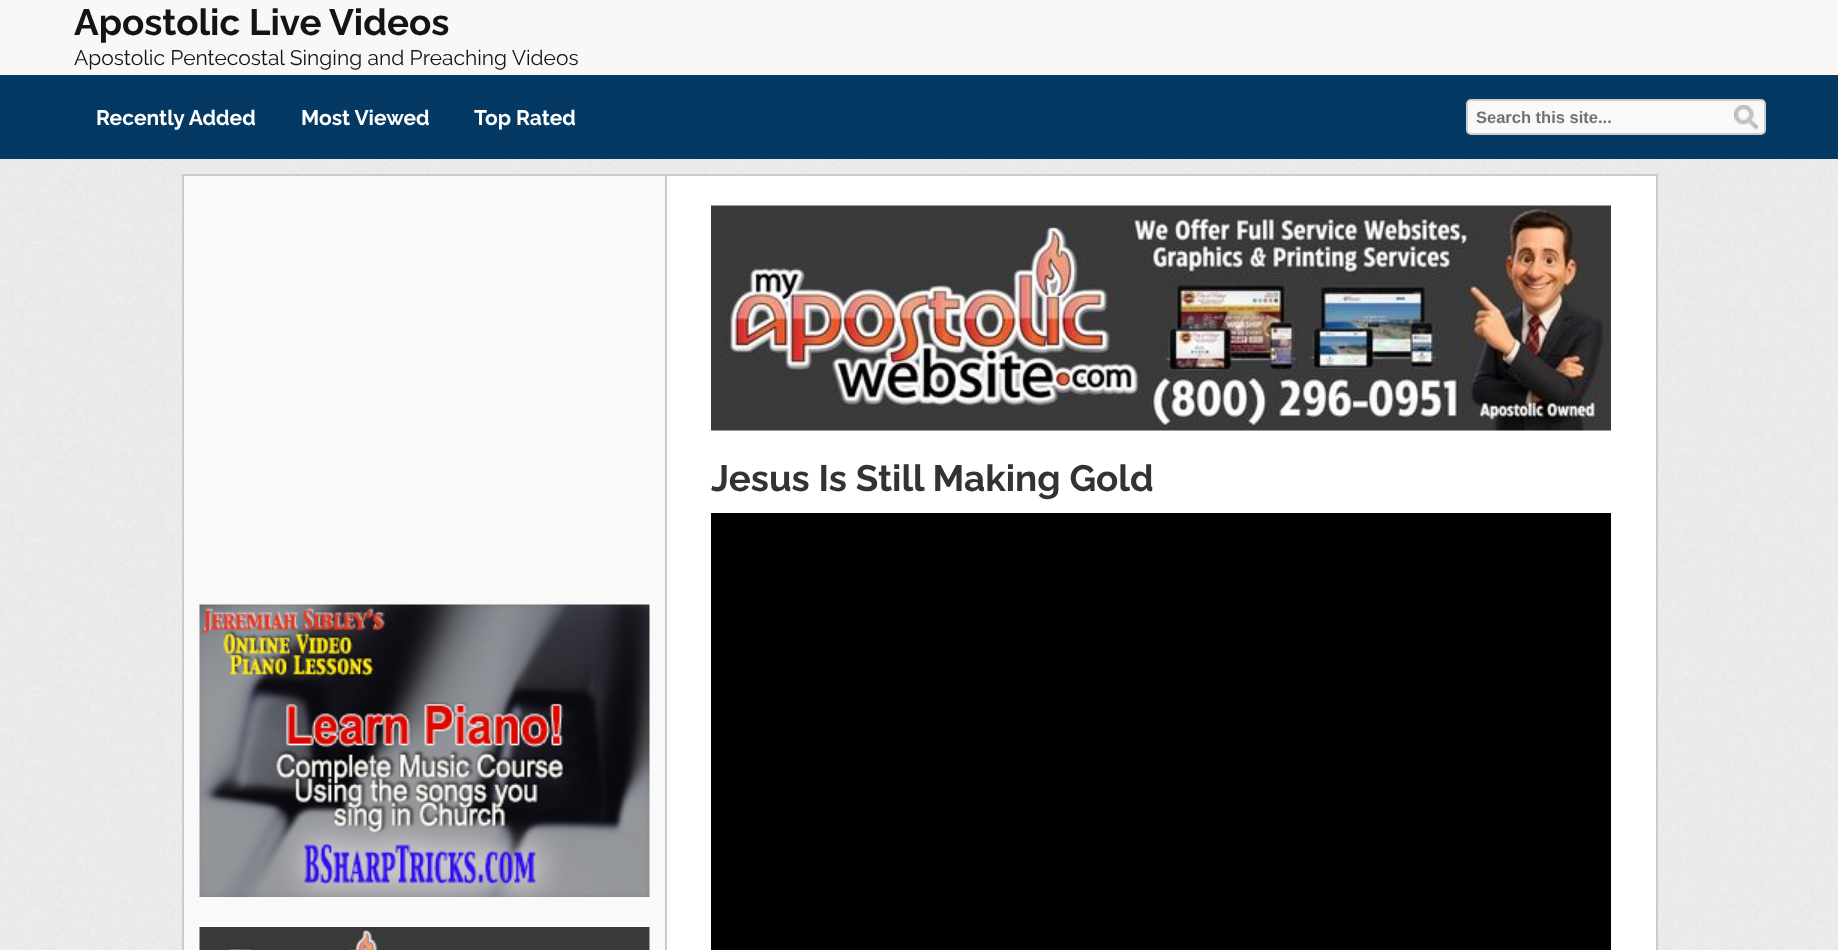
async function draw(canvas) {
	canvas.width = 1838;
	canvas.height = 950;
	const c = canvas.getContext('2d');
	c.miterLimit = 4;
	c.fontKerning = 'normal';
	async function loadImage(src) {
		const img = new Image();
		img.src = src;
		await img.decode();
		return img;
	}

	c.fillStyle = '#fff';
	c.fillRect(0, 0, 1838, 950);
	c.drawImage(await loadImage('img1.png'), 0, 159, 1838, 791);
	c.fillStyle = '#faf7f7';
	c.fillRect(0, 0, 1838, 75);
	c.font = 'bold 36.75px Raleway';
	c.fillStyle = '#141412';
	c.fillText('Apostolic Live Videos', 74, 35);
	c.font = '21px Raleway';
	c.fillText('Apostolic Pentecostal Singing and Preaching Videos', 74, 65);
	c.fillStyle = '#033962';
	c.fillRect(0, 75, 1838, 84);
	c.font = 'bold 21px Raleway';
	c.fillStyle = '#fff';
	for (const [text, x, y] of [
		['Recently Added', 96, 125],
		['Most Viewed', 301, 125],
		['Top Rated', 474, 125],
	]) {
		c.fillText(text, x, y);
	}
	c.fillStyle = '#faf9f7';
	c.beginPath();
	c.roundRect(1467, 100, 298, 34, 4);
	c.fill();
	c.strokeStyle = '#ccc';
	c.lineWidth = 2;
	c.stroke();
	c.font = 'bold 16.5px Liberation Sans';
	c.fillStyle = '#717171';
	c.fillText('Search this site...', 1476, 123);
	c.drawImage(await loadImage('img2.png'), 1734, 105, 24, 25);
	for (const [x, y, w, h, color] of [
		[184, 176, 481, 774, '#f9f9f9'],
		[182, 174, 483, 2, '#cccaca'],
		[182, 174, 2, 776, '#cccaca'],
	]) {
		c.fillStyle = color;
		c.fillRect(x, y, w, h);
	}
	c.drawImage(await loadImage('img3.png'), 199, 604, 451, 293);
	c.drawImage(await loadImage('img4.png'), 199, 927, 451, 23);
	c.fillStyle = '#fff';
	c.beginPath();
	c.rect(666, 175, 991, 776);
	c.fill();
	c.strokeStyle = '#cccaca';
	c.stroke();
	c.drawImage(await loadImage('img5.png'), 711, 205, 900, 226);
	c.font = 'bold 36.75px Raleway';
	c.fillStyle = '#333';
	c.fillText('Jesus Is Still Making Gold', 711, 491);
	c.fillStyle = '#000';
	c.fillRect(711, 513, 900, 437);
}

draw(document.querySelector('canvas'));
